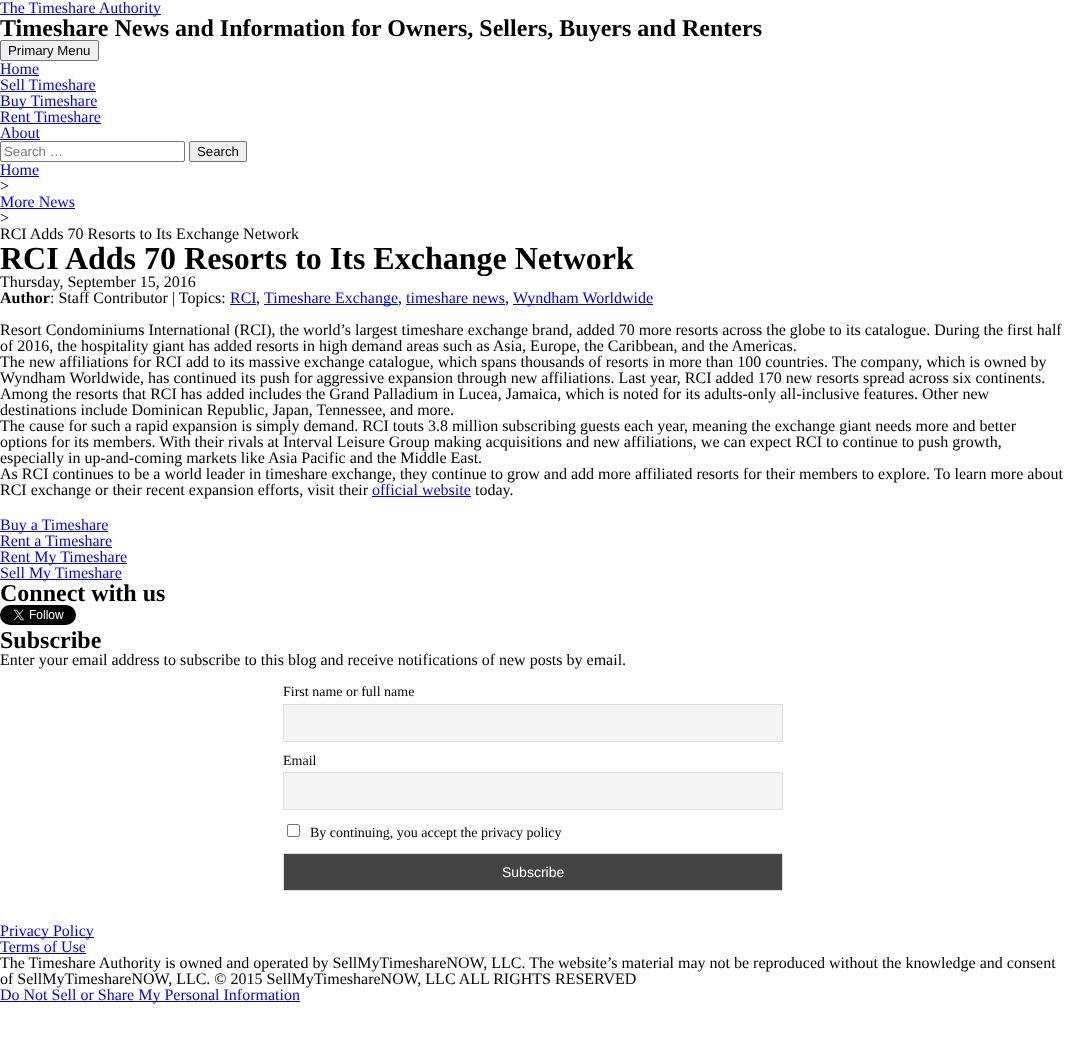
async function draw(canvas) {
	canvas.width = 1066;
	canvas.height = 1052;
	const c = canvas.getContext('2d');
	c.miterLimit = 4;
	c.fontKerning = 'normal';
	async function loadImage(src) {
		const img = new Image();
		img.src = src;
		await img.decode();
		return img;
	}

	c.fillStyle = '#fff';
	c.fillRect(0, 0, 1066, 1052);
	c.fillStyle = '#00e';
	c.fillRect(0, 14, 161, 1);
	c.font = '16px Liberation Serif';
	c.fillText('The Timeshare Authority', 0, 13);
	c.font = 'bold 24px Liberation Serif';
	c.fillStyle = '#000';
	c.fillText('Timeshare News and Information for Owners, Sellers, Buyers and Renters', 0, 36);
	c.fillStyle = '#efefef';
	c.beginPath();
	c.roundRect(0.5, 40.5, 98, 20, 1.5);
	c.fill();
	c.strokeStyle = '#767676';
	c.stroke();
	c.font = '13.25px Liberation Sans';
	c.fillStyle = '#000';
	c.fillText('Primary Menu', 8, 55);
	c.font = '16px Liberation Serif';
	c.fillStyle = '#00e';
	c.fillText('Home', 0, 74);
	c.fillRect(0, 75, 39, 1);
	c.fillText('Sell Timeshare', 0, 90);
	c.fillRect(0, 91, 96, 1);
	c.fillRect(0, 107, 97, 1);
	c.fillText('Buy Timeshare', 0, 106);
	c.fillText('Rent Timeshare', 0, 122);
	c.fillRect(0, 123, 101, 1);
	c.fillText('About', 0, 138);
	c.fillRect(0, 139, 40, 1);
	c.beginPath();
	c.roundRect(0.5, 141.5, 184, 20, 1.5);
	c.stroke();
	c.font = '13.25px Liberation Sans';
	c.fillStyle = '#757575';
	c.fillText('Search …', 4, 156);
	c.fillStyle = '#efefef';
	c.beginPath();
	c.roundRect(189.5, 141.5, 57, 20, 1.5);
	c.fill();
	c.stroke();
	c.fillStyle = '#000';
	c.fillText('Search', 197, 156);
	c.font = '16px Liberation Serif';
	c.fillStyle = '#00e';
	c.fillText('Home', 0, 175);
	c.fillRect(0, 176, 39, 1);
	c.fillStyle = '#000';
	c.fillText('>', 0, 191);
	c.fillStyle = '#00e';
	c.fillText('More News', 0, 207);
	c.fillRect(0, 208, 75, 1);
	c.fillStyle = '#000';
	c.fillText('>', 0, 223);
	c.fillText('RCI Adds 70 Resorts to Its Exchange Network', 0, 239);
	c.font = 'bold 32px Liberation Serif';
	c.fillText('RCI Adds 70 Resorts to Its Exchange Network', 0, 269);
	c.font = '16px Liberation Serif';
	c.fillText('Thursday, September 15, 2016', 0, 287);
	c.font = 'bold 16px Liberation Serif';
	c.fillText('Author', 0, 303);
	c.font = '16px Liberation Serif';
	c.fillText(': Staff Contributor | Topics:', 50, 303);
	c.fillStyle = '#00e';
	c.fillText('RCI', 230, 303);
	c.fillStyle = '#000';
	c.fillText(',', 256, 303);
	c.fillStyle = '#00e';
	c.fillRect(230, 304, 26, 1);
	c.fillRect(264, 304, 134, 1);
	c.fillText('Timeshare Exchange', 264, 303);
	c.fillStyle = '#000';
	c.fillText(',', 398, 303);
	c.fillStyle = '#00e';
	c.fillText('timeshare news', 406, 303);
	c.fillStyle = '#000';
	c.fillText(',', 505, 303);
	c.fillStyle = '#00e';
	c.fillRect(406, 304, 99, 1);
	c.fillRect(513, 304, 140, 1);
	c.fillText('Wyndham Worldwide', 513, 303);
	c.fillStyle = '#000';
	for (const [text, x, y] of [
		['Resort Condominiums International (RCI), the world’s largest timeshare exchange brand, added 70 more resorts across the globe to its catalogue. During the first half', 0, 335],
		['of 2016, the hospitality giant has added resorts in high demand areas such as Asia, Europe, the Caribbean, and the Americas.', 0, 351],
		['The new affiliations for RCI add to its massive exchange catalogue, which spans thousands of resorts in more than 100 countries. The company, which is owned by', 0, 367],
		['Wyndham Worldwide, has continued its push for aggressive expansion through new affiliations. Last year, RCI added 170 new resorts spread across six continents.', 0, 383],
		['Among the resorts that RCI has added includes the Grand Palladium in Lucea, Jamaica, which is noted for its adults-only all-inclusive features. Other new', 0, 399],
		['destinations include Dominican Republic, Japan, Tennessee, and more.', 0, 415],
		['The cause for such a rapid expansion is simply demand. RCI touts 3.8 million subscribing guests each year, meaning the exchange giant needs more and better', 0, 431],
		['options for its members. With their rivals at Interval Leisure Group making acquisitions and new affiliations, we can expect RCI to continue to push growth,', 0, 447],
		['especially in up-and-coming markets like Asia Pacific and the Middle East.', 0, 463],
		['As RCI continues to be a world leader in timeshare exchange, they continue to grow and add more affiliated resorts for their members to explore. To learn more about', 0, 479],
		['RCI exchange or their recent expansion efforts, visit their', 0, 495],
	]) {
		c.fillText(text, x, y);
	}
	c.fillStyle = '#00e';
	c.fillText('official website', 372, 495);
	c.fillRect(372, 496, 99, 1);
	c.fillStyle = '#000';
	c.fillText('today.', 475, 495);
	c.fillStyle = '#00e';
	c.fillRect(0, 531, 108, 1);
	c.fillText('Buy a Timeshare', 0, 530);
	c.fillText('Rent a Timeshare', 0, 546);
	c.fillRect(0, 547, 112, 1);
	c.fillRect(0, 563, 127, 1);
	c.fillText('Rent My Timeshare', 0, 562);
	c.fillRect(0, 579, 122, 1);
	c.fillText('Sell My Timeshare', 0, 578);
	c.font = 'bold 24px Liberation Serif';
	c.fillStyle = '#000';
	c.fillText('Connect with us', 0, 601);
	c.drawImage(await loadImage('img1.png'), 0, 605, 76, 20);
	c.fillText('Subscribe', 0, 648);
	c.font = '16px Liberation Serif';
	c.fillText('Enter your email address to subscribe to this blog and receive notifications of new posts by email.', 0, 665);
	c.font = '14px Liberation Serif';
	c.fillText('First name or full name', 283, 696);
	c.fillStyle = '#f4f4f4';
	c.beginPath();
	c.rect(283.5, 704.5, 499, 37);
	c.fill();
	c.strokeStyle = '#ddd';
	c.stroke();
	c.fillStyle = '#000';
	c.fillText('Email', 283, 765);
	c.fillStyle = '#f4f4f4';
	c.beginPath();
	c.rect(283.5, 772.5, 499, 37);
	c.fill();
	c.stroke();
	c.beginPath();
	c.roundRect(287.5, 824.5, 12, 12, 1.5);
	c.strokeStyle = '#767676';
	c.stroke();
	c.fillStyle = '#000';
	c.fillText('By continuing, you accept the privacy policy', 310, 837);
	c.fillStyle = '#444';
	c.beginPath();
	c.rect(283.5, 853.5, 499, 37);
	c.fill();
	c.strokeStyle = '#ddd';
	c.stroke();
	c.font = '14px Liberation Sans';
	c.fillStyle = '#fff';
	c.fillText('Subscribe', 502, 877);
	c.fillStyle = '#00e';
	c.fillRect(0, 937, 94, 1);
	c.font = '16px Liberation Serif';
	c.fillText('Privacy Policy', 0, 936);
	c.fillText('Terms of Use', 0, 952);
	c.fillRect(0, 953, 86, 1);
	c.fillStyle = '#000';
	c.fillText('The Timeshare Authority is owned and operated by SellMyTimeshareNOW, LLC. The website’s material may not be reproduced without the knowledge and consent', 0, 968);
	c.fillText('of SellMyTimeshareNOW, LLC. © 2015 SellMyTimeshareNOW, LLC ALL RIGHTS RESERVED', 0, 984);
	c.fillStyle = '#00e';
	c.fillRect(0, 1001, 300, 1);
	c.fillText('Do Not Sell or Share My Personal Information', 0, 1000);
}

draw(document.querySelector('canvas'));
